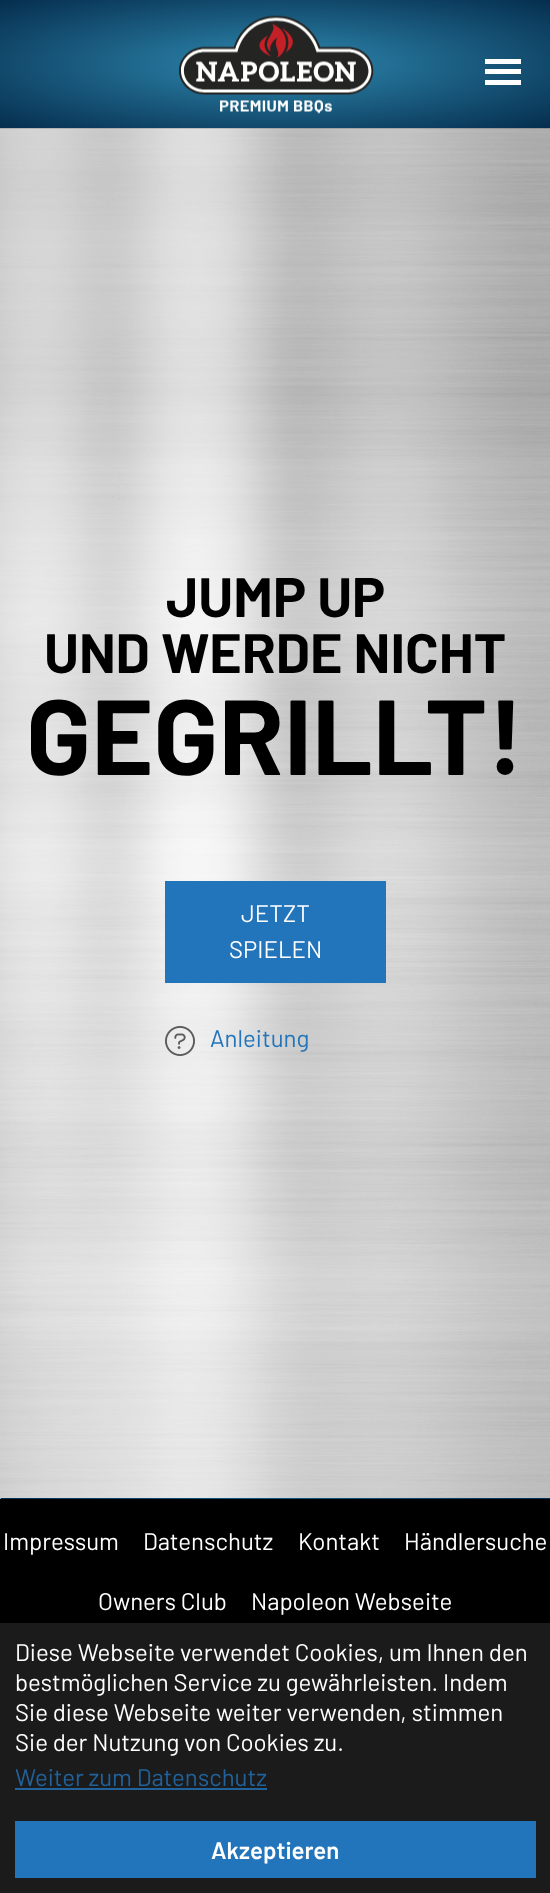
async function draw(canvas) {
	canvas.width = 550;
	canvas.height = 1893;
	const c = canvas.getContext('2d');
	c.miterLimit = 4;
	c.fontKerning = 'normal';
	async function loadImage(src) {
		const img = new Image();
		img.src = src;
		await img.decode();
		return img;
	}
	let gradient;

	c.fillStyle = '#fff';
	c.fillRect(0, 0, 550, 1893);
	c.drawImage(await loadImage('img2.png'), 0, 128, 550, 1371);
	c.fillStyle = '#00000026';
	c.beginPath();
	c.moveTo(0, 128);
	c.lineTo(0, 129);
	c.lineTo(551, 129);
	c.lineTo(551, 2);
	c.lineTo(550, 2);
	c.lineTo(550, 128);
	c.closePath();
	c.fill();
	gradient = c.createRadialGradient(275, 276.62, 0, 275, 276.62, 389);
	gradient.addColorStop(0, '#2f89b1');
	gradient.addColorStop(1, '#052e4e');
	c.fillStyle = gradient;
	c.beginPath();
	c.rect(0, 0, 550, 128);
	c.save();
	c.clip();
	c.scale(1, 90 / 389);
	c.fillRect(0, 0, 550, 8182);
	c.restore();
	c.drawImage(await loadImage('img1.png'), 179, 15, 195, 99);
	for (const [x, y, w, h, color] of [
		[485, 69, 36, 5, '#fff'],
		[485, 59, 36, 5, '#fff'],
		[485, 80, 36, 5, '#fff'],
	]) {
		c.fillStyle = color;
		c.fillRect(x, y, w, h);
	}
	c.font = 'bold 55.5px Barlow';
	c.fillStyle = '#000';
	c.fillText('JUMP UP', 166, 617);
	c.fillText('UND WERDE NICHT', 44, 673);
	c.font = 'bold 106.5px Barlow';
	c.fillText('GEGRILLT!', 26, 775);
	c.fillStyle = '#2274bb';
	c.fillRect(165, 881, 221, 102);
	c.font = '24px Barlow';
	c.fillStyle = '#fff';
	c.fillText('JETZT', 241, 922);
	c.fillText('SPIELEN', 229, 958);
	c.drawImage(await loadImage('img3.png'), 165, 1026, 30, 30);
	c.fillStyle = '#2274bb';
	c.fillText('Anleitung', 210, 1047);
	c.fillStyle = '#1b1b1b';
	c.fillRect(0, 1623, 550, 270);
	c.fillStyle = '#fff';
	for (const [text, x, y] of [
		['Diese Webseite verwendet Cookies, um Ihnen den', 15, 1661],
		['bestmöglichen Service zu gewährleisten. Indem', 15, 1691],
		['Sie diese Webseite weiter verwenden, stimmen', 15, 1721],
		['Sie der Nutzung von Cookies zu.', 15, 1751],
	]) {
		c.fillText(text, x, y);
	}
	c.fillStyle = '#21629b';
	c.fillText('Weiter zum Datenschutz', 15, 1786);
	c.fillRect(15, 1788, 252, 2);
	c.fillStyle = '#2274bb';
	c.fillRect(15, 1821, 521, 57);
	c.font = '600 24px Barlow';
	c.fillStyle = '#fff';
	c.fillText('Akzeptieren', 211, 1859);
	c.drawImage(await loadImage('img4.png'), 0, 1498, 550, 1);
	c.fillStyle = '#000';
	c.fillRect(0, 1499, 550, 124);
	c.font = '24px Barlow';
	c.fillStyle = '#fff';
	for (const [text, x, y] of [
		['Impressum', 3, 1550],
		['Datenschutz', 143, 1550],
		['Kontakt', 298, 1550],
		['Händlersuche', 404, 1550],
		['Owners Club', 98, 1610],
		['Napoleon Webseite', 251, 1610],
	]) {
		c.fillText(text, x, y);
	}
}

draw(document.querySelector('canvas'));
